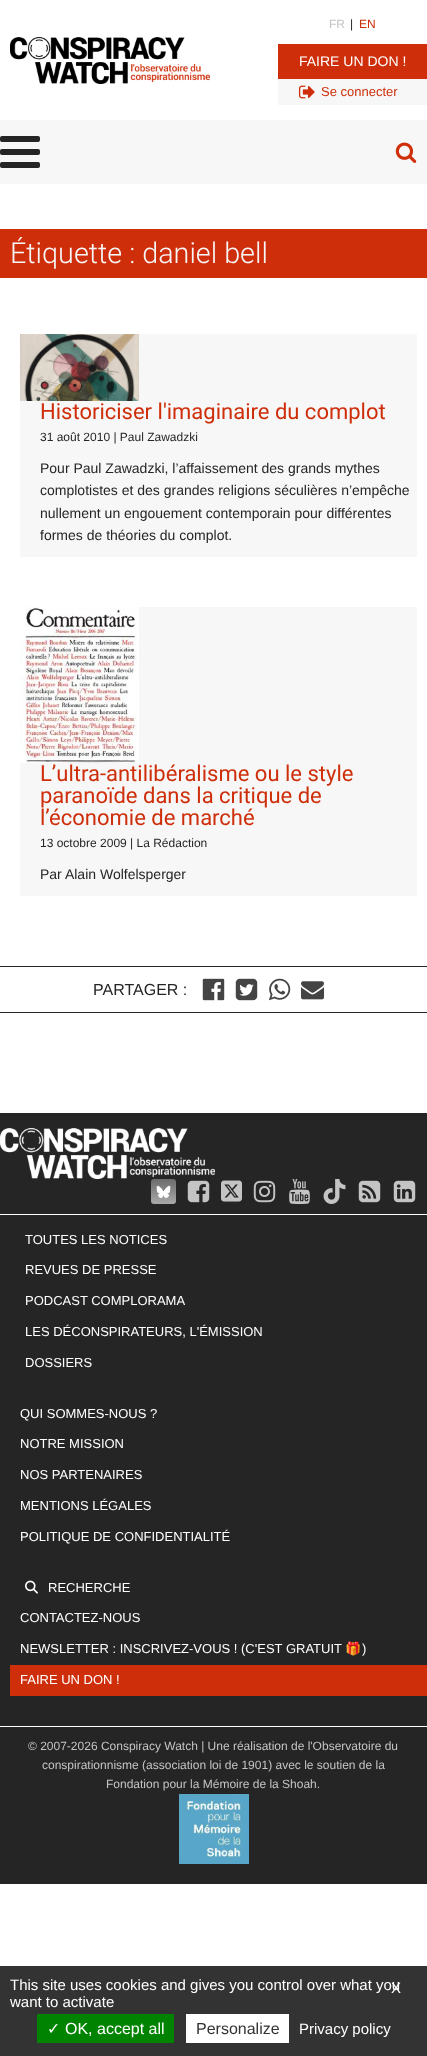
async function draw(canvas) {
	canvas.width = 427;
	canvas.height = 2056;
	const c = canvas.getContext('2d');
	c.miterLimit = 4;
	c.fontKerning = 'normal';
	async function loadImage(src) {
		const img = new Image();
		img.src = src;
		await img.decode();
		return img;
	}

	c.fillStyle = '#fff';
	c.fillRect(0, 0, 427, 2056);
	c.drawImage(await loadImage('img1.png'), 10, 37, 200, 47);
	c.font = '12px Liberation Sans';
	c.fillStyle = '#c4c4c4';
	c.fillText('FR', 329, 28);
	c.fillStyle = '#252525';
	c.fillText('|', 350, 28);
	c.fillStyle = '#ce2e0a';
	c.fillText('EN', 359, 28);
	c.fillRect(278, 44, 149, 35);
	c.font = '14px Liberation Sans';
	c.fillStyle = '#fff';
	c.fillText('FAIRE UN DON !', 299, 66);
	c.fillStyle = '#f7f7f7';
	c.fillRect(278, 79, 149, 26);
	c.drawImage(await loadImage('img2.png'), 298, 85, 17, 14);
	c.font = '13px Liberation Sans';
	c.fillStyle = '#ce2e0a';
	c.fillText('Se connecter', 321, 96);
	c.fillStyle = '#f7f7f7';
	c.fillRect(0, 120, 427, 64);
	c.fillStyle = '#252525';
	c.beginPath();
	c.roundRect(0, 136, 40, 6, 2);
	c.fill();
	c.beginPath();
	c.roundRect(0, 149, 40, 6, 2);
	c.fill();
	c.beginPath();
	c.roundRect(0, 162, 40, 6, 2);
	c.fill();
	c.drawImage(await loadImage('img3.png'), 395, 142, 22, 21);
	c.fillStyle = '#ce2e0a';
	c.fillRect(0, 229, 427, 49);
	c.font = '300 28.75px Roboto';
	c.fillStyle = '#f7f7f7';
	c.fillText('Étiquette : daniel bell', 10, 263);
	c.fillRect(20, 334, 397, 223);
	c.drawImage(await loadImage('img4.png'), 20, 334, 119, 67);
	c.font = '22px Roboto';
	c.fillStyle = '#ce2e0a';
	c.fillText('Historiciser l\'imaginaire du complot', 40, 419);
	c.font = '12px Liberation Sans';
	c.fillStyle = '#252525';
	c.fillText('31 août 2010 | Paul Zawadzki', 40, 441);
	c.font = '14px Liberation Sans';
	for (const [text, x, y] of [
		['Pour Paul Zawadzki, l’affaissement des grands mythes', 40, 473],
		['complotistes et des grandes religions séculières n’empêche', 40, 495],
		['nullement un engouement contemporain pour différentes', 40, 518],
		['formes de théories du complot.', 40, 540],
	]) {
		c.fillText(text, x, y);
	}
	c.fillStyle = '#f7f7f7';
	c.fillRect(20, 607, 397, 289);
	c.drawImage(await loadImage('img5.png'), 20, 607, 119, 156);
	c.font = '22px Roboto';
	c.fillStyle = '#ce2e0a';
	for (const [text, x, y] of [
		['L’ultra-antilibéralisme ou le style', 40, 781],
		['paranoïde dans la critique de', 40, 803],
		['l’économie de marché', 40, 825],
	]) {
		c.fillText(text, x, y);
	}
	c.font = '12px Liberation Sans';
	c.fillStyle = '#252525';
	c.fillText('13 octobre 2009 | La Rédaction', 40, 847);
	c.font = '14px Liberation Sans';
	c.fillText('Par Alain Wolfelsperger', 40, 879);
	c.fillRect(0, 966, 427, 1);
	c.fillRect(0, 1012, 427, 1);
	c.font = '16px Liberation Sans';
	c.fillText('PARTAGER :', 93, 995);
	c.drawImage(await loadImage('img6.png'), 202, 978, 23, 23);
	c.drawImage(await loadImage('img7.png'), 235, 978, 23, 23);
	c.drawImage(await loadImage('img8.png'), 268, 978, 23, 23);
	c.drawImage(await loadImage('img9.png'), 301, 981, 23, 19);
	c.fillRect(0, 1113, 427, 771);
	c.drawImage(await loadImage('img10.png'), 0, 1128, 215, 51);
	c.drawImage(await loadImage('img11.png'), 151, 1179, 25, 25);
	c.drawImage(await loadImage('img12.png'), 187, 1180, 23, 23);
	c.drawImage(await loadImage('img13.png'), 221, 1180, 21, 22);
	c.drawImage(await loadImage('img14.png'), 253, 1180, 23, 23);
	c.drawImage(await loadImage('img15.png'), 289, 1179, 21, 25);
	c.drawImage(await loadImage('img16.png'), 323, 1179, 23, 25);
	c.drawImage(await loadImage('img17.png'), 358, 1180, 23, 23);
	c.drawImage(await loadImage('img18.png'), 393, 1180, 23, 23);
	c.fillStyle = '#fff';
	c.fillRect(0, 1214, 427, 1);
	c.font = '13px Liberation Sans';
	for (const [text, x, y] of [
		['TOUTES LES NOTICES', 25, 1244],
		['REVUES DE PRESSE', 25, 1274],
		['PODCAST COMPLORAMA', 25, 1305],
		['LES DÉCONSPIRATEURS, L\'ÉMISSION', 25, 1336],
		['DOSSIERS', 25, 1367],
		['QUI SOMMES-NOUS ?', 20, 1418],
		['NOTRE MISSION', 20, 1448],
		['NOS PARTENAIRES', 20, 1479],
		['MENTIONS LÉGALES', 20, 1510],
		['POLITIQUE DE CONFIDENTIALITÉ', 20, 1541],
	]) {
		c.fillText(text, x, y);
	}
	c.drawImage(await loadImage('img19.png'), 25, 1580, 13, 14);
	for (const [text, x, y] of [
		['RECHERCHE', 48, 1592],
		['CONTACTEZ-NOUS', 20, 1622],
		['NEWSLETTER : INSCRIVEZ-VOUS ! (C\'EST GRATUIT', 20, 1653],
	]) {
		c.fillText(text, x, y);
	}
	c.font = '13px Noto Color Emoji';
	c.fillText('🎁', 345, 1653);
	c.font = '13px Liberation Sans';
	c.fillText(')', 362, 1653);
	c.fillStyle = '#ce2e0a';
	c.fillRect(10, 1665, 417, 31);
	c.fillStyle = '#fff';
	c.fillText('FAIRE UN DON !', 20, 1684);
	c.fillRect(0, 1726, 427, 1);
	c.font = '12px Liberation Sans';
	c.fillStyle = '#c4c4c4';
	for (const [text, x, y] of [
		['© 2007-2026 Conspiracy Watch | Une réalisation de l\'Observatoire du', 28, 1750],
		['conspirationnisme (association loi de 1901) avec le soutien de la', 42, 1769],
		['Fondation pour la Mémoire de la Shoah.', 106, 1788],
	]) {
		c.fillText(text, x, y);
	}
	c.drawImage(await loadImage('img20.png'), 179, 1794, 70, 70);
	c.fillStyle = '#333';
	c.fillRect(0, 1966, 427, 90);
	c.font = '15px Liberation Sans';
	c.fillStyle = '#fff';
	for (const [text, x, y] of [
		['This site uses cookies and gives you control over what you', 10, 1990],
		['want to activate', 10, 2007],
		['X', 391, 1993],
	]) {
		c.fillText(text, x, y);
	}
	c.fillStyle = '#008300';
	c.fillRect(37, 2014, 137, 29);
	c.font = '16px DejaVu Sans';
	c.fillStyle = '#fff';
	c.fillText('✓', 47, 2034);
	c.font = '16px Liberation Sans';
	c.fillText('OK, accept all', 65, 2034);
	c.fillRect(186, 2014, 103, 29);
	c.fillStyle = '#333';
	c.fillText('Personalize', 196, 2034);
	c.font = '15px Liberation Sans';
	c.fillStyle = '#fff';
	c.fillText('Privacy policy', 299, 2034);
}

draw(document.querySelector('canvas'));
